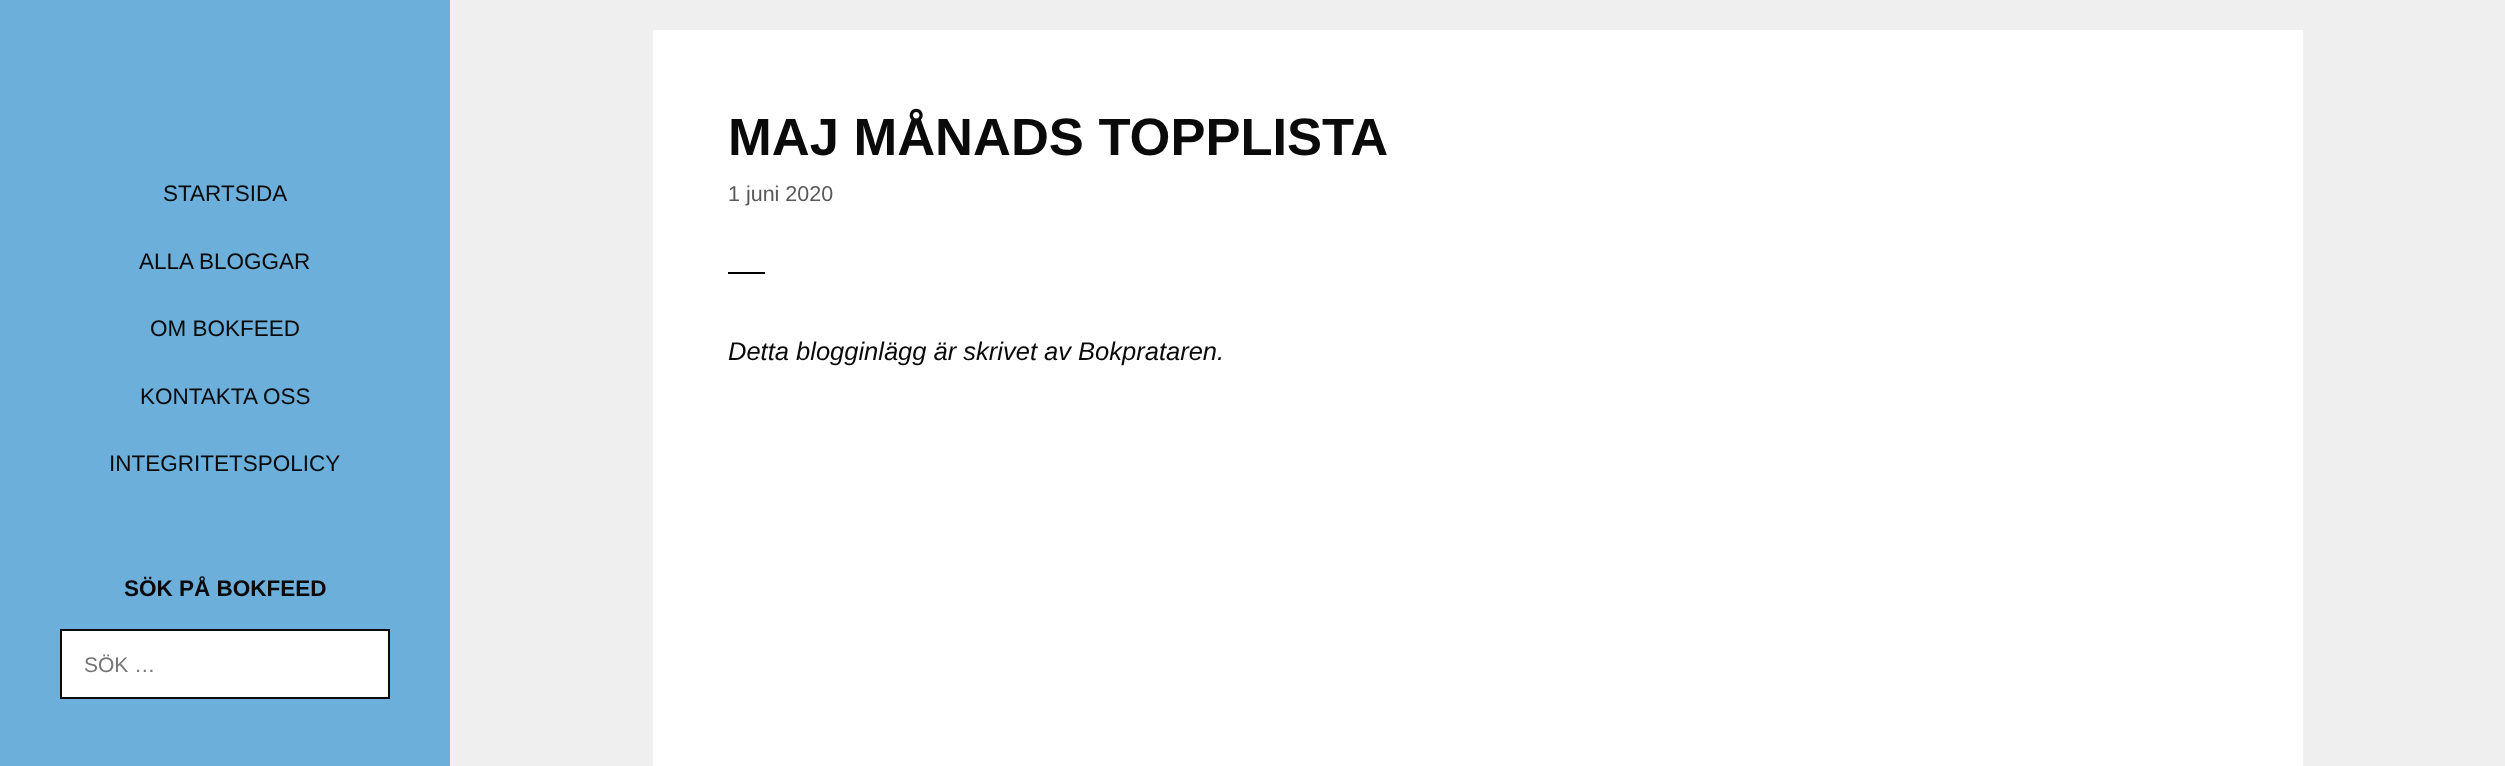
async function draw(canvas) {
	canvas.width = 2505;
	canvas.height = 766;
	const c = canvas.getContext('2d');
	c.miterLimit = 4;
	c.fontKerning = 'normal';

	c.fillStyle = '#efefef';
	c.fillRect(0, 0, 2505, 766);
	c.fillStyle = '#6dafdb';
	c.fillRect(0, 0, 450, 766);
	c.font = '22.5px Arimo';
	c.fillStyle = '#0a0a0a';
	for (const [text, x, y] of [
		['STARTSIDA', 163, 201],
		['ALLA BLOGGAR', 139, 269],
		['OM BOKFEED', 150, 336],
		['KONTAKTA OSS', 140, 404],
		['INTEGRITETSPOLICY', 109, 471],
	]) {
		c.fillText(text, x, y);
	}
	c.font = 'bold 22.5px Arimo';
	c.fillText('SÖK PÅ BOKFEED', 124, 596);
	c.fillStyle = '#fff';
	c.beginPath();
	c.rect(61, 630, 328, 68);
	c.fill();
	c.strokeStyle = '#0a0a0a';
	c.lineWidth = 2;
	c.stroke();
	c.font = '21px Arimo';
	c.fillStyle = '#757575';
	c.fillText('SÖK …', 84, 672);
	c.fillStyle = '#fff';
	c.fillRect(653, 30, 1650, 736);
	c.font = 'bold 52.5px Arimo';
	c.fillStyle = '#0a0a0a';
	c.fillText('MAJ MÅNADS TOPPLISTA', 728, 155);
	c.font = '21.5px Arimo';
	c.fillStyle = '#595959';
	c.fillText('1 juni 2020', 728, 201);
	c.fillStyle = '#000';
	c.fillRect(728, 272, 37, 2);
	c.font = 'italic 25.5px Arimo';
	c.fillStyle = '#0a0a0a';
	c.fillText('Detta blogginlägg är skrivet av Bokprataren.', 728, 360);
}

draw(document.querySelector('canvas'));
